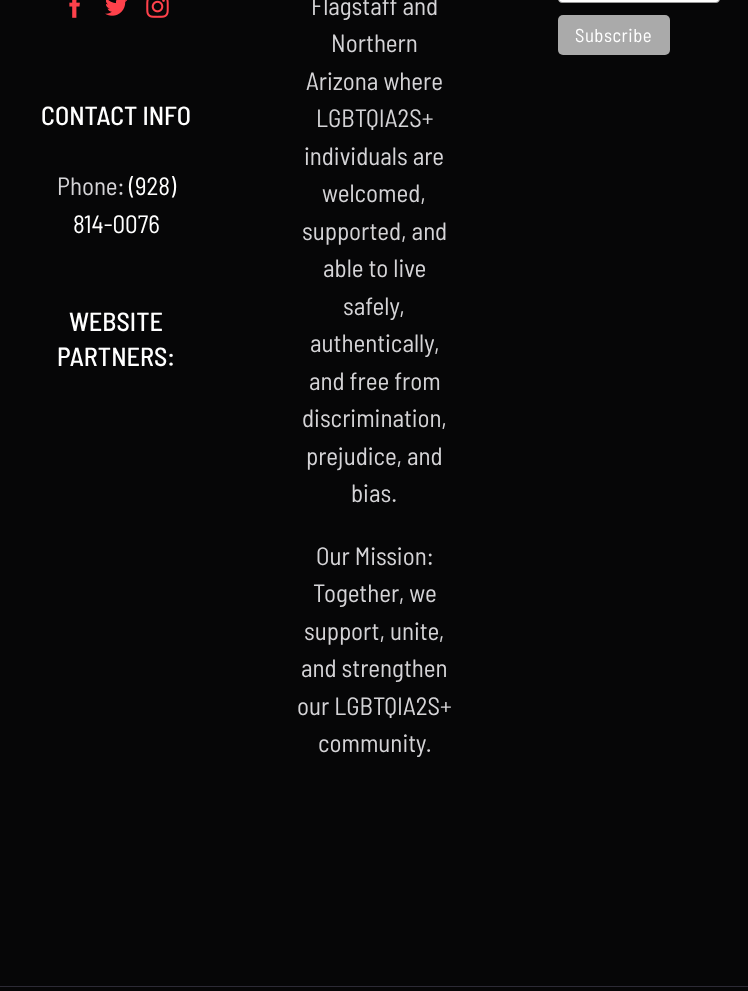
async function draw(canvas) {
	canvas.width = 748;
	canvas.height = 991;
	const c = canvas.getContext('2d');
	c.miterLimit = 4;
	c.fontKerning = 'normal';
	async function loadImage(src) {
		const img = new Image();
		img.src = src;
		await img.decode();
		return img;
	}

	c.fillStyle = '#060607';
	c.fillRect(0, 0, 748, 991);
	c.font = '25px Barlow Semi Condensed';
	c.fillStyle = '#d5d4d7';
	for (const [text, x, y] of [
		['Flagstaff and', 311, 15],
		['Northern', 331, 52],
		['Arizona where', 306, 90],
		['LGBTQIA2S+', 316, 127],
		['individuals are', 304, 165],
		['welcomed,', 322, 202],
		['supported, and', 302, 240],
		['able to live', 323, 277],
		['safely,', 343, 315],
		['authentically,', 310, 352],
		['and free from', 309, 390],
		['discrimination,', 302, 427],
		['prejudice, and', 306, 465],
		['bias.', 351, 502],
		['Our Mission:', 316, 565],
		['Together, we', 313, 602],
		['support, unite,', 304, 640],
		['and strengthen', 301, 677],
		['our LGBTQIA2S+', 297, 715],
		['community.', 318, 752],
	]) {
		c.fillText(text, x, y);
	}
	c.fillStyle = '#fff';
	c.beginPath();
	c.roundRect(558.5, -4.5, 161, 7, 3.5);
	c.fill();
	c.strokeStyle = '#999';
	c.stroke();
	c.fillStyle = '#aaa';
	c.beginPath();
	c.roundRect(558, 15, 112, 40, 5);
	c.fill();
	c.letterSpacing = '0.5px';
	c.font = '18.75px Barlow Semi Condensed';
	c.fillStyle = '#fff';
	c.fillText('Subscribe', 575, 42);
	c.drawImage(await loadImage('img1.png'), 69, 0, 11, 18);
	c.drawImage(await loadImage('img2.png'), 105, 0, 22, 16);
	c.drawImage(await loadImage('img3.png'), 146, 0, 23, 18);
	c.letterSpacing = '0px';
	c.font = '500 26.25px Barlow Semi Condensed';
	c.fillText('CONTACT INFO', 41, 125);
	c.font = '25px Barlow Semi Condensed';
	c.fillStyle = '#d5d4d7';
	c.fillText('Phone:', 57, 195);
	c.fillStyle = '#fff';
	c.fillText('(928)', 129, 195);
	c.fillText('814-0076', 73, 233);
	c.font = '500 26.25px Barlow Semi Condensed';
	c.fillText('WEBSITE', 69, 331);
	c.fillText('PARTNERS:', 57, 366);
	c.fillStyle = '#2c2a35';
	c.fillRect(0, 986, 748, 1);
}

draw(document.querySelector('canvas'));
